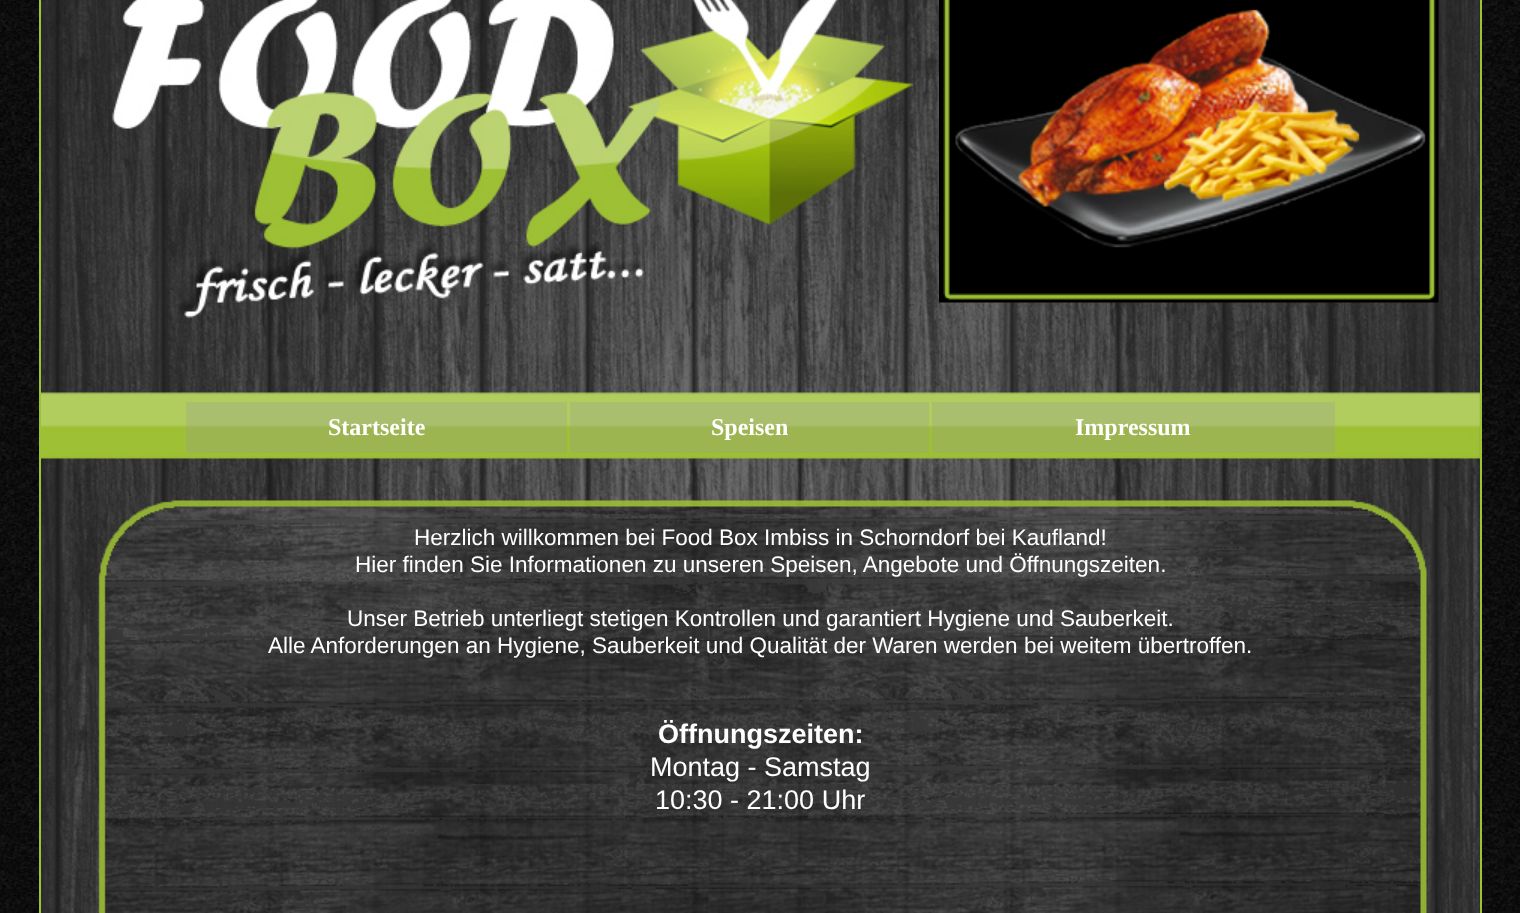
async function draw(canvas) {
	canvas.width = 1520;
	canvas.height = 913;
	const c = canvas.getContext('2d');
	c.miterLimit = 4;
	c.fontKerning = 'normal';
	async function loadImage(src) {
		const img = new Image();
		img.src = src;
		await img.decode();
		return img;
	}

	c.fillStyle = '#fff';
	c.fillRect(0, 0, 1520, 913);
	c.drawImage(await loadImage('img1.png'), 0, 0, 1520, 913);
	c.drawImage(await loadImage('img2.png'), 41, 0, 1439, 913);
	c.strokeStyle = '#9dc234';
	c.lineWidth = 2;
	c.strokeRect(40, -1, 1441, 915);
	c.drawImage(await loadImage('img3.png'), 939, 0, 500, 303);
	c.fillStyle = '#99999947';
	c.fillRect(186, 402, 381, 51);
	c.font = 'bold 24px Liberation Serif';
	c.fillStyle = '#fff';
	c.fillText('Startseite', 328, 435);
	c.fillStyle = '#99999947';
	c.fillRect(570, 402, 359, 51);
	c.fillStyle = '#fff';
	c.fillText('Speisen', 711, 435);
	c.fillStyle = '#99999947';
	c.fillRect(932, 402, 403, 51);
	c.fillStyle = '#fff';
	c.fillText('Impressum', 1075, 435);
	c.font = '22.5px Liberation Sans';
	for (const [text, x, y] of [
		['Herzlich willkommen bei Food Box Imbiss in Schorndorf bei Kaufland!', 414, 545],
		['Hier finden Sie Informationen zu unseren Speisen, Angebote und Öffnungszeiten.', 355, 572],
		['Unser Betrieb unterliegt stetigen Kontrollen und garantiert Hygiene und Sauberkeit.', 347, 626],
		['Alle Anforderungen an Hygiene, Sauberkeit und Qualität der Waren werden bei weitem übertroffen.', 268, 653],
	]) {
		c.fillText(text, x, y);
	}
	c.font = 'bold 27px Liberation Sans';
	c.fillText('Öffnungszeiten:', 658, 743);
	c.font = '27px Liberation Sans';
	c.fillText('Montag - Samstag', 650, 776);
	c.fillText('10:30 - 21:00 Uhr', 655, 809);
}

draw(document.querySelector('canvas'));
